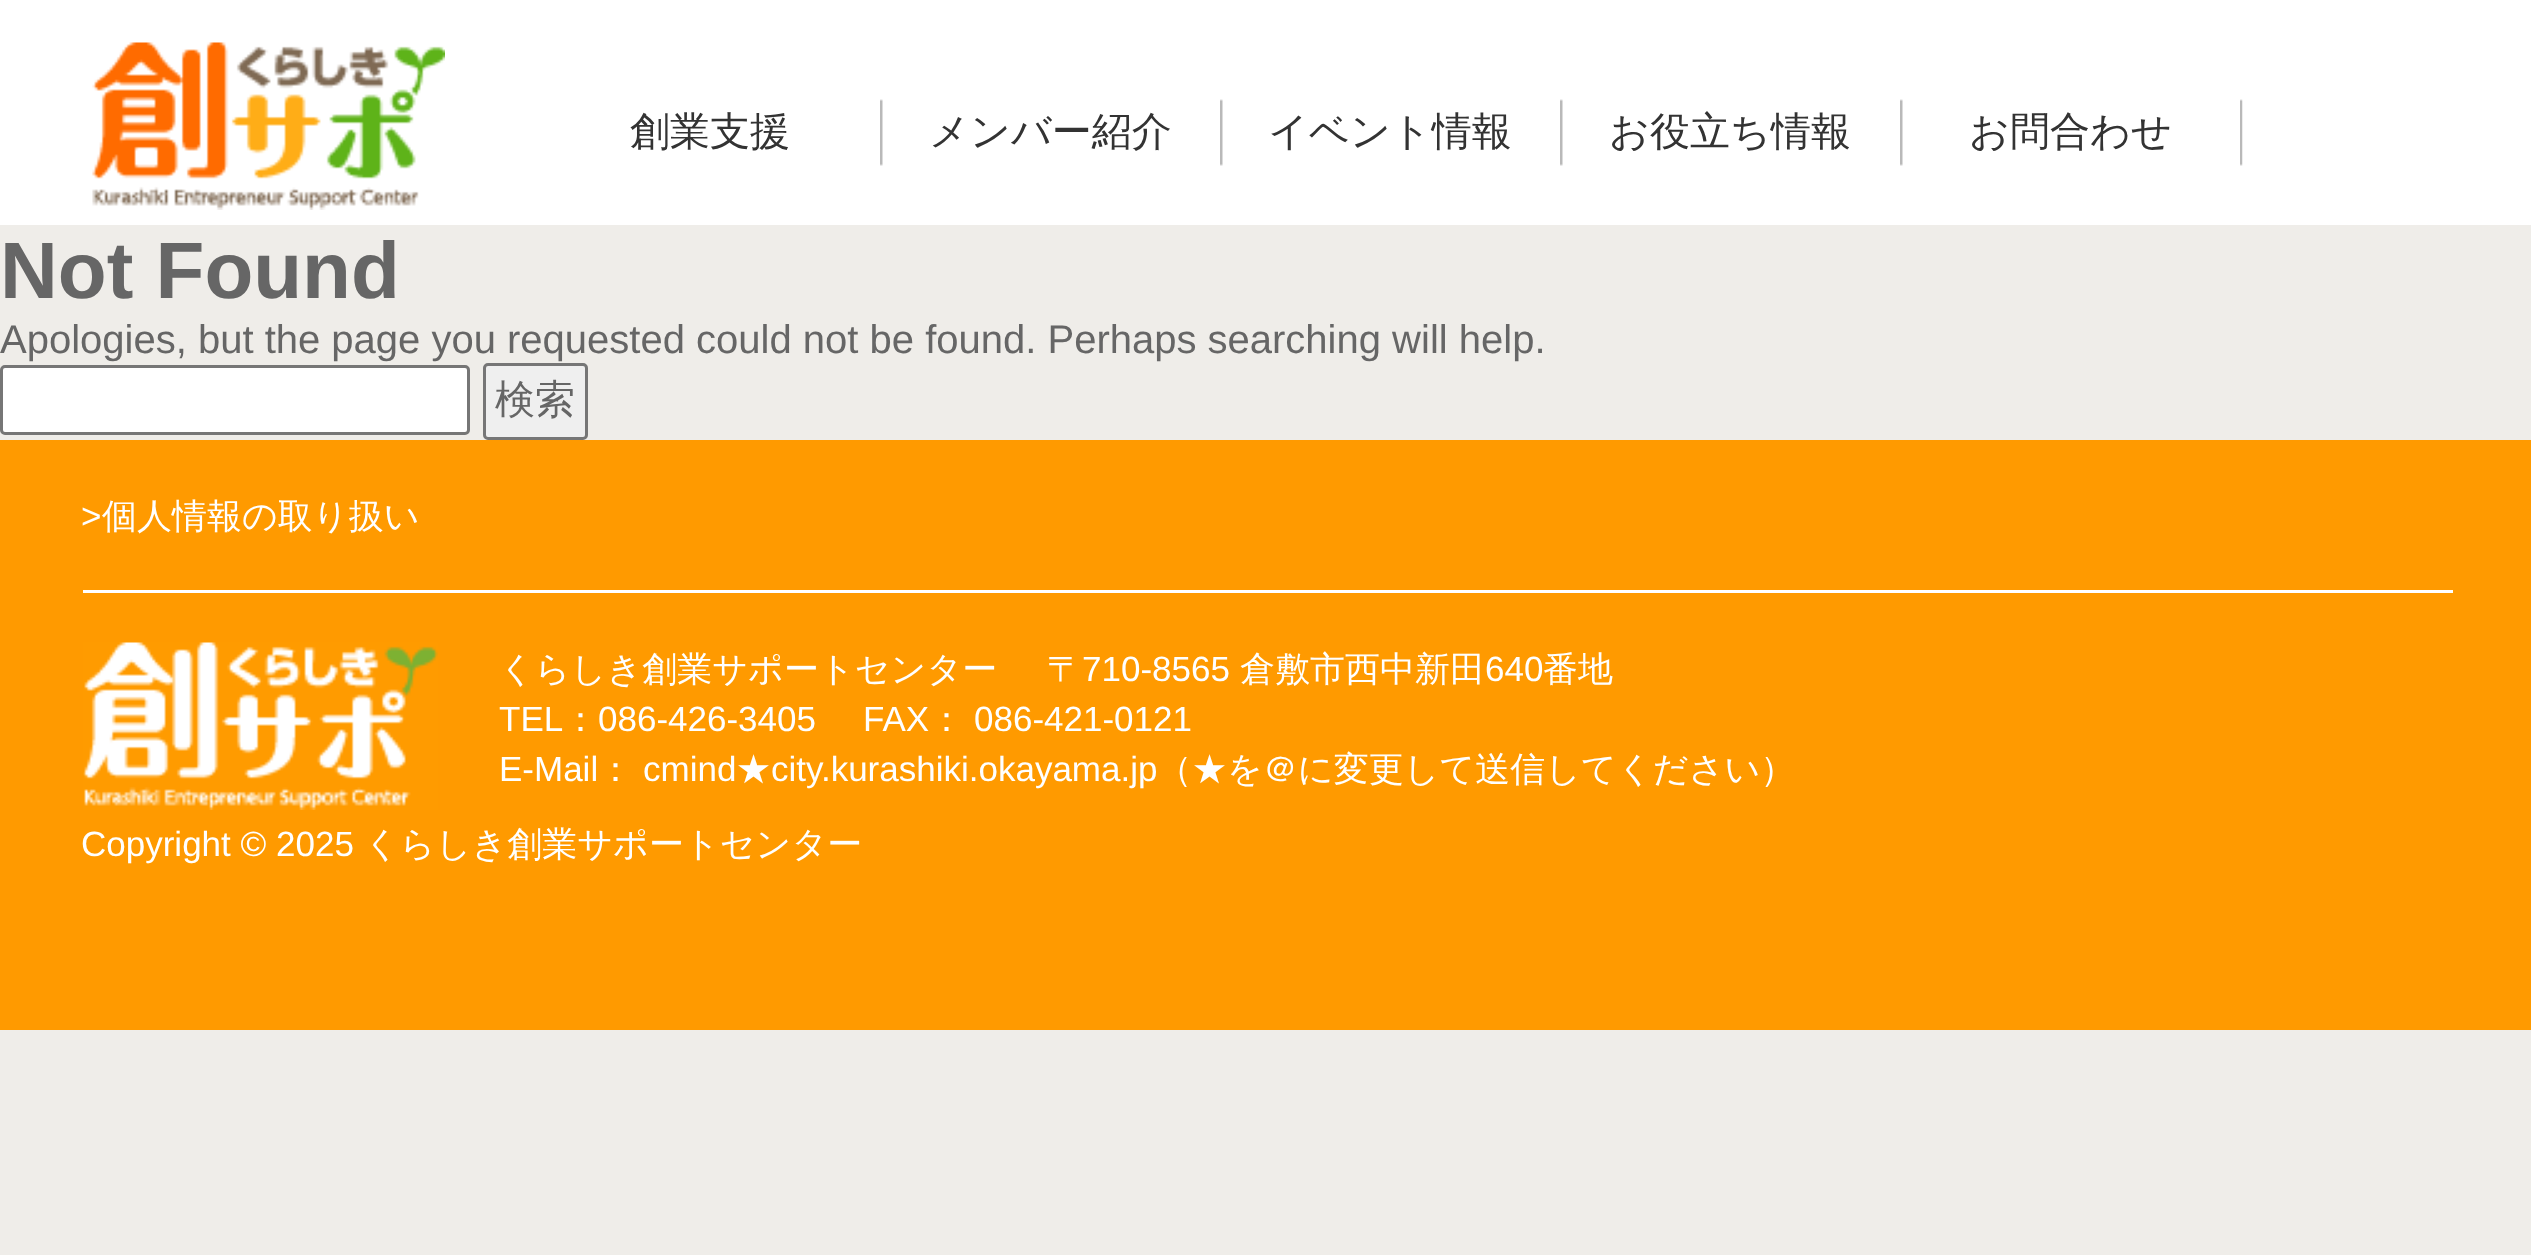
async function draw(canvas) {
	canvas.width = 2531;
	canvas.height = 1255;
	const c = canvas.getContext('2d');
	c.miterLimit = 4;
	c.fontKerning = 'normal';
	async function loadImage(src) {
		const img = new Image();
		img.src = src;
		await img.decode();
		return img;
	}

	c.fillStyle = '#efede9';
	c.fillRect(0, 0, 2531, 1255);
	c.fillStyle = '#fff';
	c.fillRect(0, 0, 2531, 225);
	c.drawImage(await loadImage('img1.png'), 92, 42, 353, 168);
	c.drawImage(await loadImage('img2.png'), 880, 99, 3, 67);
	c.font = '500 40px WenQuanYi Zen Hei';
	c.fillStyle = '#333';
	c.fillText('創業支援', 630, 145);
	c.drawImage(await loadImage('img2.png'), 1220, 99, 3, 67);
	c.fillText('メンバー紹介', 929, 145);
	c.drawImage(await loadImage('img2.png'), 1560, 99, 3, 67);
	c.fillText('イベント情報', 1268, 145);
	c.drawImage(await loadImage('img2.png'), 1900, 99, 3, 67);
	c.fillText('お役立ち情報', 1609, 145);
	c.drawImage(await loadImage('img3.png'), 2240, 99, 3, 67);
	c.fillText('お問合わせ', 1969, 145);
	c.font = 'bold 80px Liberation Sans';
	c.fillStyle = '#666';
	c.fillText('Not Found', 0, 298);
	c.font = '40px Liberation Sans';
	c.fillText('Apologies, but the page you requested could not be found. Perhaps searching will help.', 0, 353);
	c.fillStyle = '#fff';
	c.beginPath();
	c.roundRect(1.5, 366.5, 467, 67, 3.5);
	c.fill();
	c.strokeStyle = '#767676';
	c.lineWidth = 3;
	c.stroke();
	c.fillStyle = '#efefef';
	c.beginPath();
	c.roundRect(484.5, 364.5, 102, 74, 3.5);
	c.fill();
	c.stroke();
	c.font = '500 40px WenQuanYi Zen Hei';
	c.fillStyle = '#666';
	c.fillText('検索', 495, 413);
	c.fillStyle = '#ff9a00';
	c.fillRect(0, 440, 2531, 590);
	c.fillStyle = '#fff';
	c.fillRect(83, 590, 2370, 3);
	c.font = '35px Liberation Sans';
	c.fillText('>', 81, 528);
	c.font = '500 35px WenQuanYi Zen Hei';
	c.fillText('個人情報の取り扱い', 102, 528);
	c.drawImage(await loadImage('img4.png'), 83, 642, 355, 168);
	c.fillText('くらしき創業サポートセンター', 499, 681);
	c.fillText('〒', 1047, 681);
	c.font = '35px Liberation Sans';
	c.fillText('710-8565', 1082, 681);
	c.font = '500 35px WenQuanYi Zen Hei';
	c.fillText('倉敷市西中新田', 1240, 681);
	c.font = '35px Liberation Sans';
	c.fillText('640', 1485, 681);
	c.font = '500 35px WenQuanYi Zen Hei';
	c.fillText('番地', 1543, 681);
	c.font = '35px Liberation Sans';
	c.fillText('TEL', 499, 731);
	c.font = '500 35px WenQuanYi Zen Hei';
	c.fillText('：', 563, 731);
	c.font = '35px Liberation Sans';
	c.fillText('086-426-3405', 598, 731);
	c.fillText('FAX', 863, 731);
	c.font = '500 35px WenQuanYi Zen Hei';
	c.fillText('：', 929, 731);
	c.font = '35px Liberation Sans';
	c.fillText('086-421-0121', 974, 731);
	c.fillText('E-Mail', 499, 781);
	c.font = '500 35px WenQuanYi Zen Hei';
	c.fillText('：', 598, 781);
	c.font = '35px Liberation Sans';
	c.fillText('cmind', 643, 781);
	c.font = '500 35px WenQuanYi Zen Hei';
	c.fillText('★', 736, 781);
	c.font = '35px Liberation Sans';
	c.fillText('city.kurashiki.okayama.jp', 771, 781);
	c.font = '500 35px WenQuanYi Zen Hei';
	c.fillText('（★を＠に変更して送信してください）', 1157, 781);
	c.font = '35px Liberation Sans';
	c.fillText('Copyright © 2025', 81, 856);
	c.font = '500 35px WenQuanYi Zen Hei';
	c.fillText('くらしき創業サポートセンター', 364, 856);
}

draw(document.querySelector('canvas'));
